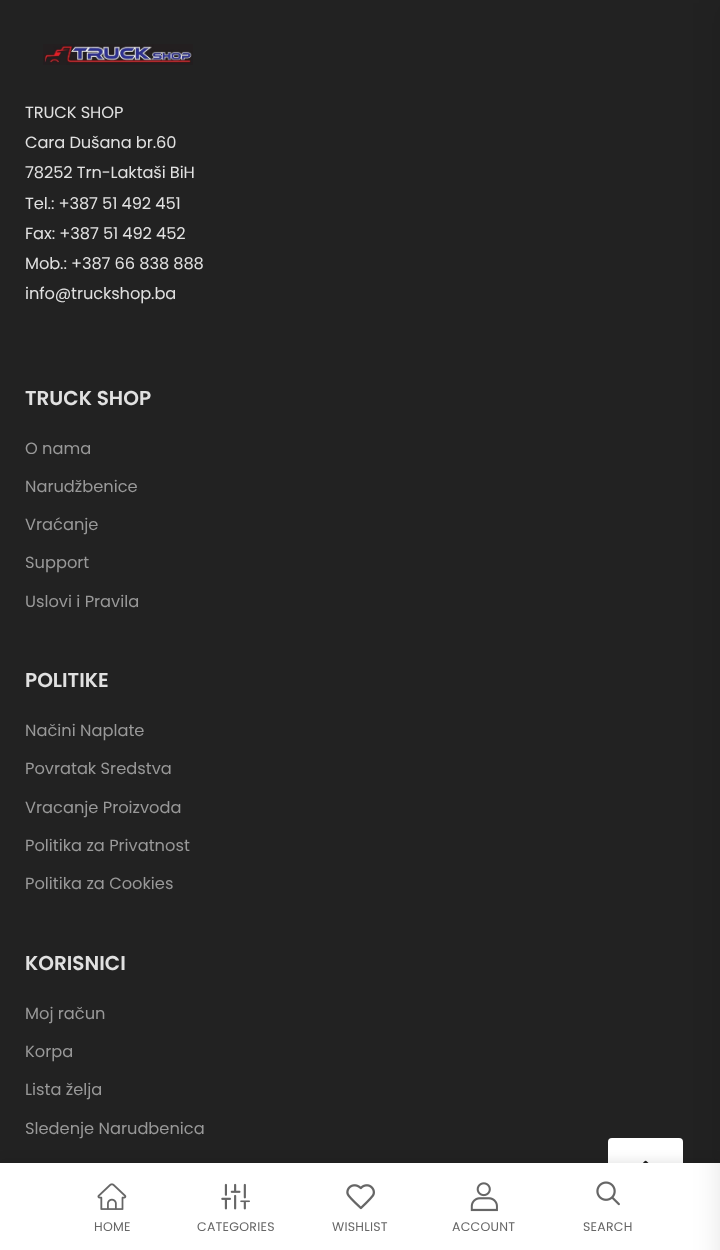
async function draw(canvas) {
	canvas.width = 720;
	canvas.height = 1250;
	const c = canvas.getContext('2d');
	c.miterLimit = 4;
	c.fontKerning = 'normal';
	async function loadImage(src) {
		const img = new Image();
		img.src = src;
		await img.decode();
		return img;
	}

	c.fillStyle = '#222';
	c.fillRect(0, 0, 720, 1250);
	c.drawImage(await loadImage('img1.png'), 43, 44, 150, 21);
	c.letterSpacing = '-0.1px';
	c.font = '16.25px Poppins';
	c.fillStyle = '#e1e1e1';
	for (const [text, x, y] of [
		['TRUCK SHOP', 25, 118],
		['Cara Dušana br.60', 25, 148],
		['78252 Trn-Laktaši BiH', 25, 178],
		['Tel.: +387 51 492 451', 25, 209],
		['Fax: +387 51 492 452', 25, 239],
		['Mob.: +387 66 838 888', 25, 269],
		['info@truckshop.ba', 25, 299],
	]) {
		c.fillText(text, x, y);
	}
	c.letterSpacing = '0px';
	c.font = '600 20px Poppins';
	c.fillText('TRUCK SHOP', 25, 405);
	c.font = '16.25px Poppins';
	c.fillStyle = '#999';
	for (const [text, x, y] of [
		['O nama', 25, 454],
		['Narudžbenice', 25, 492],
		['Vraćanje', 25, 530],
		['Support', 25, 568],
		['Uslovi i Pravila', 25, 607],
	]) {
		c.fillText(text, x, y);
	}
	c.font = '600 20px Poppins';
	c.fillStyle = '#e1e1e1';
	c.fillText('POLITIKE', 25, 687);
	c.font = '16.25px Poppins';
	c.fillStyle = '#999';
	for (const [text, x, y] of [
		['Načini Naplate', 25, 736],
		['Povratak Sredstva', 25, 774],
		['Vracanje Proizvoda', 25, 813],
		['Politika za Privatnost', 25, 851],
		['Politika za Cookies', 25, 889],
	]) {
		c.fillText(text, x, y);
	}
	c.font = '600 20px Poppins';
	c.fillStyle = '#e1e1e1';
	c.fillText('KORISNICI', 25, 970);
	c.font = '16.25px Poppins';
	c.fillStyle = '#999';
	for (const [text, x, y] of [
		['Moj račun', 25, 1019],
		['Korpa', 25, 1057],
		['Lista želja', 25, 1095],
		['Sledenje Narudbenica', 25, 1134],
	]) {
		c.fillText(text, x, y);
	}
	c.fillStyle = '#fff';
	c.beginPath();
	c.roundRect(608, 1138, 75, 75, 4);
	c.fill();
	c.drawImage(await loadImage('img2.png'), 643, 1160, 6, 3);
	c.fillStyle = '#0000001a';
	c.filter = 'blur(6px)';
	c.beginPath();
	c.rect(-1, 1161, 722, 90);
	c.fill();
	c.filter = 'none';
	c.fillStyle = '#fff';
	c.fillRect(0, 1163, 720, 87);
	c.fillStyle = '#0000001a';
	c.filter = 'blur(14px)';
	c.beginPath();
	c.rect(720, 3, 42, 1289);
	c.fill();
	c.filter = 'none';
	c.drawImage(await loadImage('img3.png'), 97, 1183, 30, 27);
	c.letterSpacing = '0.25px';
	c.font = '12.5px Poppins';
	c.fillStyle = '#666';
	c.fillText('HOME', 94, 1231);
	c.drawImage(await loadImage('img4.png'), 221, 1183, 29, 27);
	c.fillText('CATEGORIES', 197, 1231);
	c.drawImage(await loadImage('img5.png'), 346, 1184, 29, 26);
	c.fillText('WISHLIST', 332, 1231);
	c.drawImage(await loadImage('img6.png'), 470, 1182, 28, 30);
	c.fillText('ACCOUNT', 452, 1231);
	c.drawImage(await loadImage('img7.png'), 596, 1181, 24, 25);
	c.fillText('SEARCH', 583, 1231);
}

draw(document.querySelector('canvas'));
